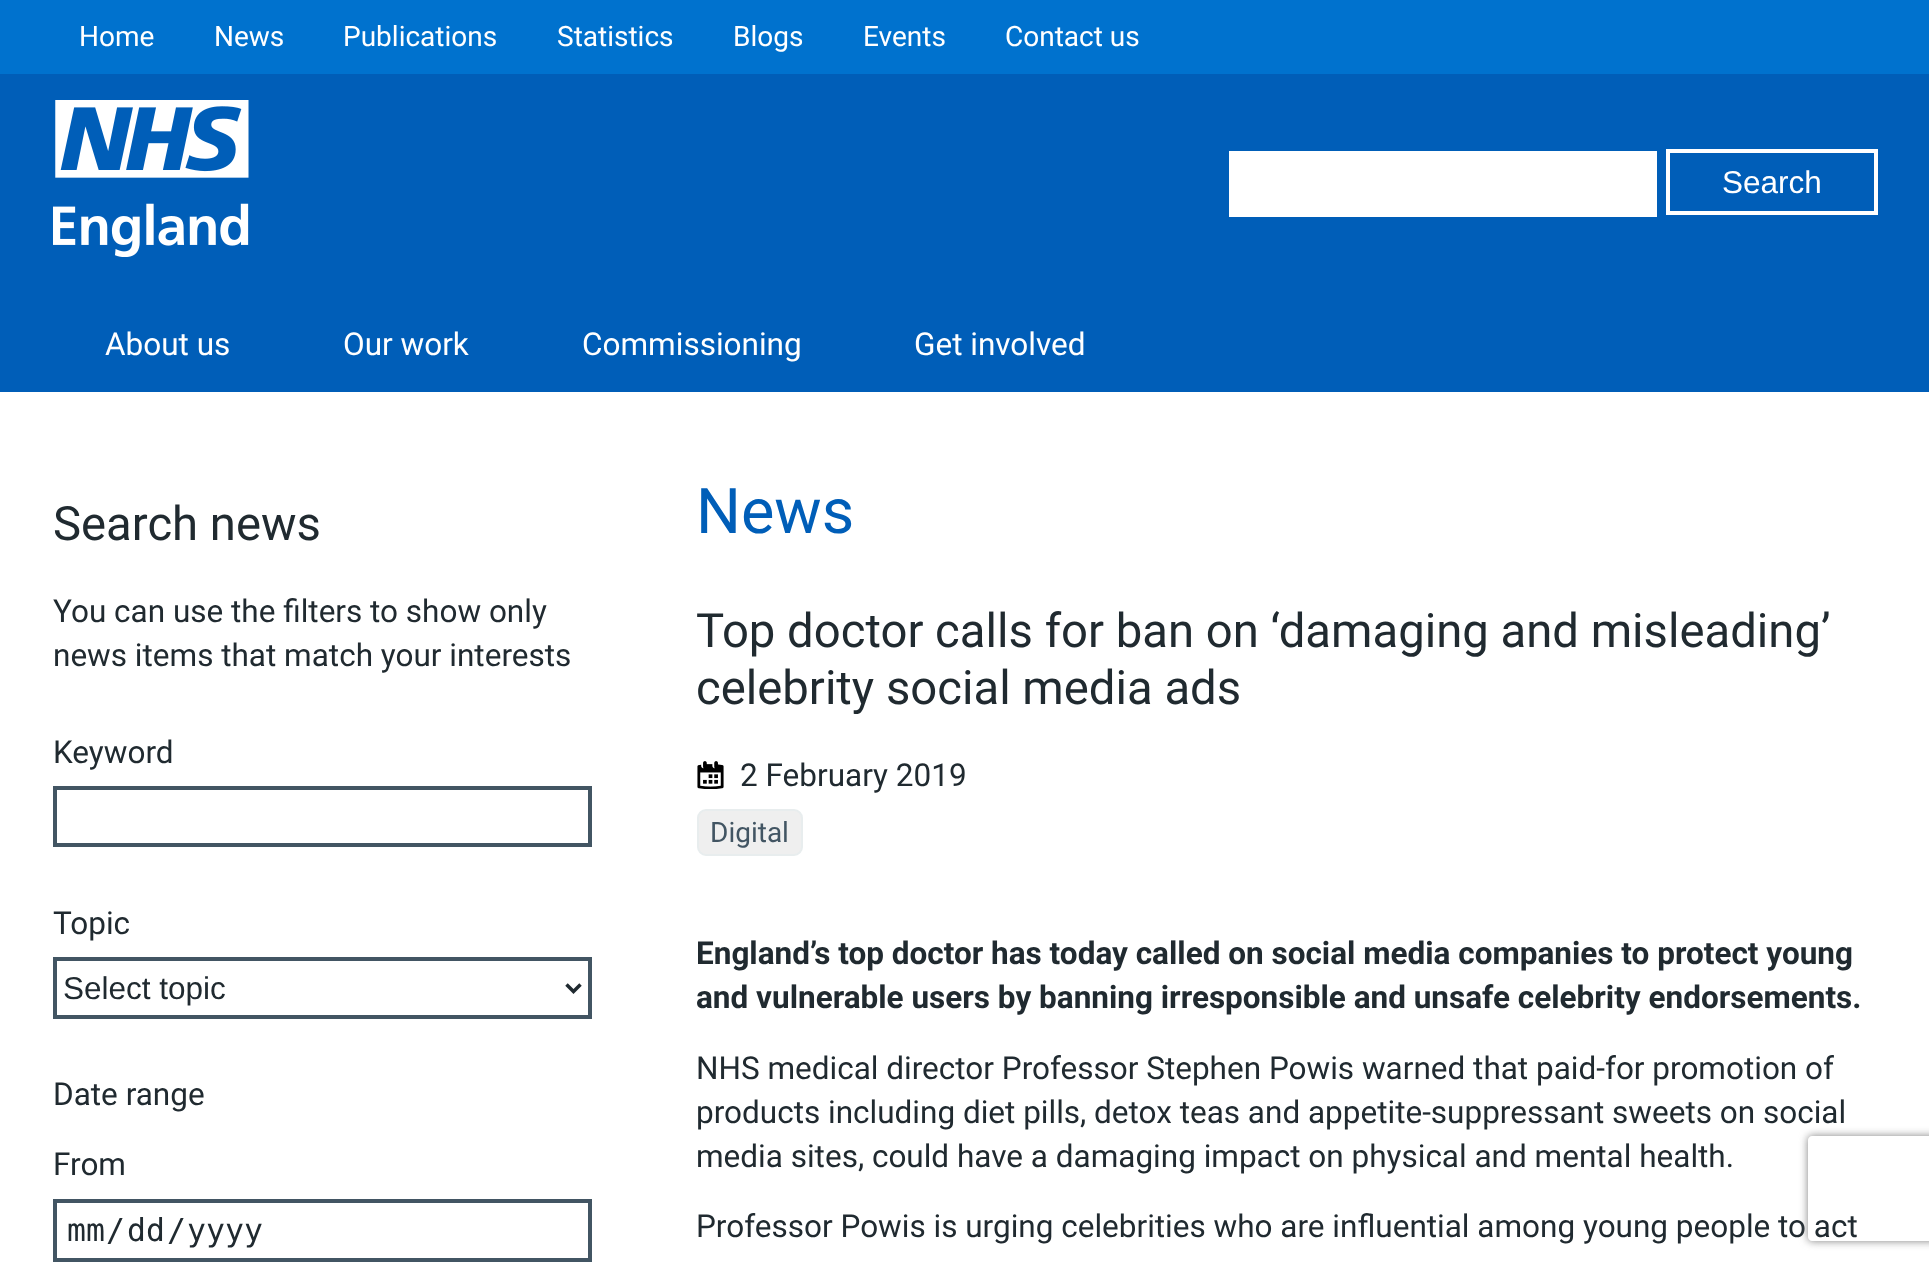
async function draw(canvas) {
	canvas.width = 1929;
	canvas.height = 1265;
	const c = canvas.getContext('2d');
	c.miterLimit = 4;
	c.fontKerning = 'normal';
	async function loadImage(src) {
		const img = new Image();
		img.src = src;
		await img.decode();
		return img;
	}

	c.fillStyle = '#fff';
	c.fillRect(0, 0, 1929, 1265);
	c.fillStyle = '#0072ce';
	c.fillRect(0, 0, 1929, 74);
	c.font = '28px Roboto';
	c.fillStyle = '#fff';
	for (const [text, x, y] of [
		['Home', 79, 46],
		['News', 214, 46],
		['Publications', 343, 46],
		['Statistics', 557, 46],
		['Blogs', 733, 46],
		['Events', 863, 46],
		['Contact us', 1005, 46],
	]) {
		c.fillText(text, x, y);
	}
	c.fillStyle = '#005eb8';
	c.fillRect(0, 74, 1929, 318);
	c.drawImage(await loadImage('img1.png'), 53, 100, 196, 157);
	c.fillStyle = '#fff';
	c.fillRect(1229, 151, 428, 66);
	c.strokeStyle = '#fff';
	c.lineWidth = 4;
	c.strokeRect(1668, 151, 208, 62);
	c.font = '31.5px Liberation Sans';
	c.fillText('Search', 1722, 193);
	c.font = '31.5px Roboto';
	for (const [text, x, y] of [
		['About us', 105, 355],
		['Our work', 343, 355],
		['Commissioning', 582, 355],
		['Get involved', 914, 355],
	]) {
		c.fillText(text, x, y);
	}
	c.font = '47.25px Roboto';
	c.fillStyle = '#202a30';
	c.fillText('Search news', 53, 540);
	c.font = '31.5px Roboto';
	for (const [text, x, y] of [
		['You can use the filters to show only', 53, 622],
		['news items that match your interests', 53, 666],
		['Keyword', 53, 763],
	]) {
		c.fillText(text, x, y);
	}
	c.strokeStyle = '#425563';
	c.strokeRect(55, 788, 535, 57);
	c.fillText('Topic', 53, 934);
	c.strokeRect(55, 959, 535, 58);
	c.beginPath();
	c.moveTo(566.5, 984.5);
	c.lineTo(573.5, 991.5);
	c.lineTo(580.5, 984.5);
	c.strokeStyle = '#202a30';
	c.lineWidth = 3.5;
	c.stroke();
	c.font = '31.5px Liberation Sans';
	c.fillText('Select topic', 63, 999);
	c.font = '31.5px Roboto';
	c.fillText('Date range', 53, 1105);
	c.fillText('From', 53, 1175);
	c.strokeStyle = '#425563';
	c.lineWidth = 4;
	c.strokeRect(55, 1201, 535, 59);
	c.font = '31.5px DejaVu Sans Mono';
	for (const [text, x, y] of [
		['mm', 67, 1241],
		['/', 106, 1241],
		['dd', 127, 1241],
		['/', 167, 1241],
		['yyyy', 187, 1241],
	]) {
		c.fillText(text, x, y);
	}
	c.font = '63px Roboto';
	c.fillStyle = '#005eb8';
	c.fillText('News', 696, 533);
	c.font = '47.25px Roboto';
	c.fillStyle = '#202a30';
	c.fillText('Top doctor calls for ban on ‘damaging and misleading’', 696, 647);
	c.fillText('celebrity social media ads', 696, 704);
	c.drawImage(await loadImage('img2.png'), 697, 761, 27, 28);
	c.font = '31.5px Roboto';
	c.fillText('2 February 2019', 740, 786);
	c.fillStyle = '#efefef';
	c.beginPath();
	c.roundRect(698, 810, 104, 45, 8);
	c.fill();
	c.strokeStyle = '#e8edee';
	c.lineWidth = 2;
	c.stroke();
	c.font = '28px Roboto';
	c.fillStyle = '#425563';
	c.fillText('Digital', 710, 842);
	c.font = 'bold 31.5px Roboto';
	c.fillStyle = '#202a30';
	c.fillText('England’s top doctor has today called on social media companies to protect young', 696, 964);
	c.fillText('and vulnerable users by banning irresponsible and unsafe celebrity endorsements.', 696, 1008);
	c.font = '31.5px Roboto';
	for (const [text, x, y] of [
		['NHS medical director Professor Stephen Powis warned that paid-for promotion of', 696, 1079],
		['products including diet pills, detox teas and appetite-suppressant sweets on social', 696, 1123],
		['media sites, could have a damaging impact on physical and mental health.', 696, 1167],
		['Professor Powis is urging celebrities who are influential among young people to act', 696, 1237],
	]) {
		c.fillText(text, x, y);
	}
	c.save();
	c.beginPath();
	c.moveTo(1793, 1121);
	c.lineTo(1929, 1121);
	c.lineTo(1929, 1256);
	c.lineTo(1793, 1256);
	c.closePath();
	c.moveTo(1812, 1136);
	c.lineTo(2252, 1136);
	c.bezierCurveTo(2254, 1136, 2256, 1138, 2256, 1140);
	c.lineTo(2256, 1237);
	c.bezierCurveTo(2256, 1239, 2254, 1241, 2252, 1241);
	c.lineTo(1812, 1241);
	c.bezierCurveTo(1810, 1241, 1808, 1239, 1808, 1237);
	c.lineTo(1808, 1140);
	c.bezierCurveTo(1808, 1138, 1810, 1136, 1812, 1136);
	c.closePath();
	c.clip('evenodd');
	c.fillStyle = '#808080';
	c.filter = 'blur(4.5px)';
	c.beginPath();
	c.roundRect(1808, 1136, 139, 105, 4);
	c.fill();
	c.filter = 'none';
	c.restore();
}

draw(document.querySelector('canvas'));
